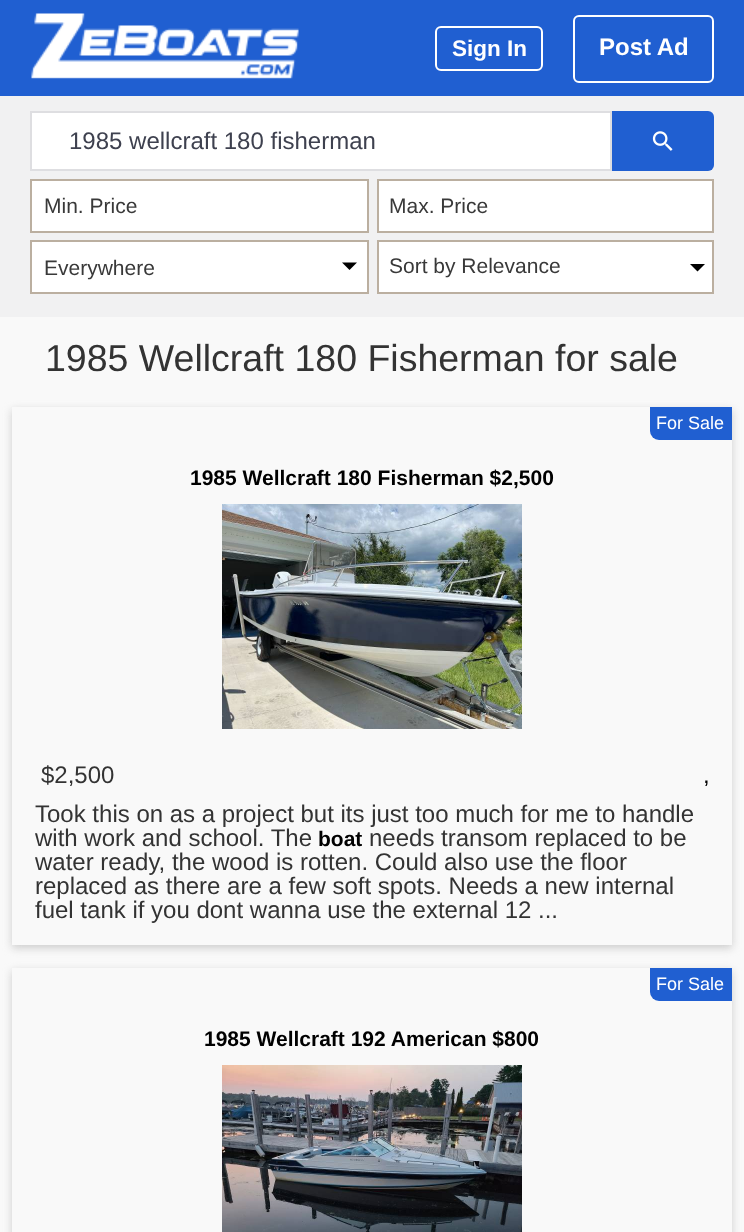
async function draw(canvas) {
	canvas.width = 744;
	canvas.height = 1232;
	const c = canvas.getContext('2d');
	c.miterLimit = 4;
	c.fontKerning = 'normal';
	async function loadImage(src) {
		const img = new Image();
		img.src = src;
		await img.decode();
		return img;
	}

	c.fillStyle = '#f9f9f9';
	c.fillRect(0, 0, 744, 1232);
	c.fillStyle = '#205fd1';
	c.fillRect(0, 0, 744, 96);
	c.drawImage(await loadImage('img1.png'), 31, 13, 268, 66);
	c.beginPath();
	c.roundRect(436, 27, 106, 43, 5);
	c.strokeStyle = '#fff';
	c.lineWidth = 2;
	c.stroke();
	c.font = 'bold 22.5px Liberation Sans';
	c.fillStyle = '#fff';
	c.fillText('Sign In', 452, 56);
	c.beginPath();
	c.roundRect(574, 16, 139, 66, 5);
	c.stroke();
	c.font = 'bold 24px Liberation Sans';
	c.fillText('Post Ad', 599, 55);
	c.fillStyle = '#f1f1f2';
	c.fillRect(0, 96, 744, 221);
	c.fillStyle = '#fff';
	c.beginPath();
	c.rect(31, 112, 580, 58);
	c.fill();
	c.strokeStyle = '#dedee1';
	c.stroke();
	c.font = '24px Liberation Sans';
	c.fillStyle = '#3e414f';
	c.fillText('1985 wellcraft 180 fisherman', 69, 149);
	c.fillStyle = '#205fd1';
	c.beginPath();
	c.roundRect(612, 111, 102, 60, [0, 6, 6, 0]);
	c.fill();
	c.drawImage(await loadImage('img2.png'), 652, 131, 21, 20);
	c.fillStyle = '#fff';
	c.beginPath();
	c.rect(31, 180, 337, 52);
	c.fill();
	c.strokeStyle = '#bbafa0';
	c.stroke();
	c.font = '21px Liberation Sans';
	c.fillStyle = '#393939';
	c.fillText('Min. Price', 44, 213);
	c.fillStyle = '#fff';
	c.beginPath();
	c.rect(378, 180, 335, 52);
	c.fill();
	c.stroke();
	c.fillStyle = '#393939';
	c.fillText('Max. Price', 389, 213);
	c.fillStyle = '#fff';
	c.beginPath();
	c.rect(31, 241, 337, 52);
	c.fill();
	c.stroke();
	c.fillStyle = '#393939';
	c.fillText('Everywhere', 44, 275);
	c.fillStyle = '#000';
	c.beginPath();
	c.moveTo(342, 262.5);
	c.lineTo(357, 262.5);
	c.lineTo(349.5, 270);
	c.closePath();
	c.fill();
	c.fillStyle = '#fff';
	c.beginPath();
	c.rect(378, 241, 335, 52);
	c.fill();
	c.stroke();
	c.fillStyle = '#393939';
	c.fillText('Sort by Relevance', 389, 273);
	c.fillStyle = '#000';
	c.beginPath();
	c.moveTo(690, 264);
	c.lineTo(705, 264);
	c.lineTo(697.5, 271.5);
	c.closePath();
	c.fill();
	c.font = '37.5px Liberation Sans';
	c.fillStyle = '#333';
	c.fillText('1985 Wellcraft 180 Fisherman for sale', 45, 371);
	c.save();
	c.beginPath();
	c.moveTo(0, 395);
	c.lineTo(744, 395);
	c.lineTo(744, 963);
	c.lineTo(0, 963);
	c.closePath();
	c.moveTo(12, 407);
	c.lineTo(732, 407);
	c.lineTo(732, 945);
	c.lineTo(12, 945);
	c.closePath();
	c.clip('evenodd');
	c.fillStyle = '#ccc';
	c.filter = 'blur(4.5px)';
	c.beginPath();
	c.rect(12, 410, 720, 538);
	c.fill();
	c.filter = 'none';
	c.restore();
	c.fillStyle = '#205fd1';
	c.beginPath();
	c.roundRect(650, 407, 82, 33, [0, 0, 0, 9]);
	c.fill();
	c.font = '18px Liberation Sans';
	c.fillStyle = '#fff';
	c.fillText('For Sale', 656, 429);
	c.font = 'bold 21px Liberation Sans';
	c.fillStyle = '#000';
	c.fillText('1985 Wellcraft 180 Fisherman $2,500', 190, 485);
	c.drawImage(await loadImage('img3.png'), 222, 504, 300, 225);
	c.font = '24px Liberation Sans';
	c.fillStyle = '#333';
	c.fillText('$2,500', 41, 783);
	c.fillStyle = '#000';
	c.fillText(',', 703, 783);
	c.fillStyle = '#333';
	c.fillText('Took this on as a project but its just too much for me to handle', 35, 822);
	c.fillText('with work and school. The', 35, 846);
	c.font = 'bold 21px Liberation Sans';
	c.fillStyle = '#000';
	c.fillText('boat', 318, 846);
	c.font = '24px Liberation Sans';
	c.fillStyle = '#333';
	for (const [text, x, y] of [
		['needs transom replaced to be', 369, 846],
		['water ready, the wood is rotten. Could also use the floor', 35, 870],
		['replaced as there are a few soft spots. Needs a new internal', 35, 894],
		['fuel tank if you dont wanna use the external 12 ...', 35, 918],
	]) {
		c.fillText(text, x, y);
	}
	c.save();
	c.beginPath();
	c.moveTo(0, 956);
	c.lineTo(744, 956);
	c.lineTo(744, 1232);
	c.lineTo(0, 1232);
	c.closePath();
	c.moveTo(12, 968);
	c.lineTo(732, 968);
	c.lineTo(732, 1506);
	c.lineTo(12, 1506);
	c.closePath();
	c.clip('evenodd');
	c.fillStyle = '#ccc';
	c.filter = 'blur(4.5px)';
	c.beginPath();
	c.rect(12, 971, 720, 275);
	c.fill();
	c.filter = 'none';
	c.restore();
	c.fillStyle = '#205fd1';
	c.beginPath();
	c.roundRect(650, 968, 82, 33, [0, 0, 0, 9]);
	c.fill();
	c.font = '18px Liberation Sans';
	c.fillStyle = '#fff';
	c.fillText('For Sale', 656, 990);
	c.font = 'bold 21px Liberation Sans';
	c.fillStyle = '#000';
	c.fillText('1985 Wellcraft 192 American $800', 204, 1046);
	c.drawImage(await loadImage('img4.png'), 222, 1065, 300, 167);
}

draw(document.querySelector('canvas'));
